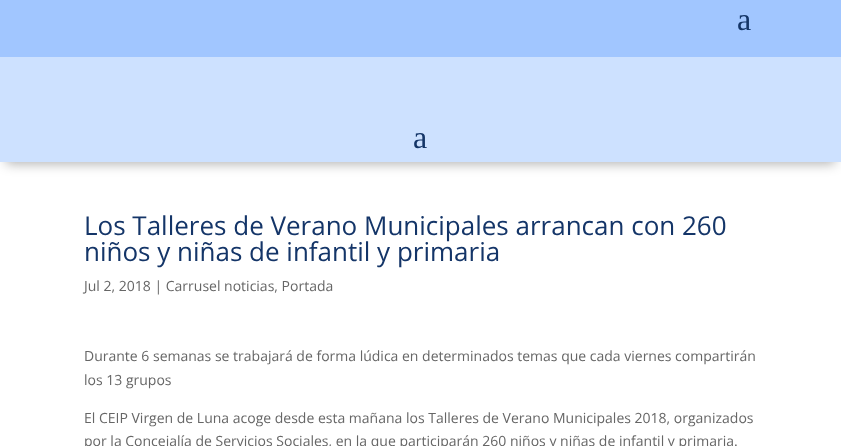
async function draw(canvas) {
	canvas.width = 841;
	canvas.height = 446;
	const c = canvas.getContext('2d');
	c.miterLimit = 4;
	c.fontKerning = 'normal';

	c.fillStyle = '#fff';
	c.fillRect(0, 0, 841, 446);
	c.fillStyle = '#a1c6ff';
	c.fillRect(0, 0, 841, 57);
	c.font = '32px Liberation Serif';
	c.fillStyle = '#143568';
	c.fillText('a', 737, 30);
	c.fillStyle = '#0000004d';
	c.filter = 'blur(6px)';
	c.beginPath();
	c.rect(6, 71, 829, 93);
	c.fill();
	c.filter = 'none';
	c.fillStyle = '#cde1ff';
	c.fillRect(0, 57, 841, 105);
	c.fillStyle = '#143568';
	c.fillText('a', 413, 148);
	c.font = '26px Open Sans';
	c.fillText('Los Talleres de Verano Municipales arrancan con 260', 84, 235);
	c.fillText('niños y niñas de infantil y primaria', 84, 261);
	c.font = '14px Open Sans';
	c.fillStyle = '#666';
	for (const [text, x, y] of [
		['Jul 2, 2018 | Carrusel noticias, Portada', 84, 291],
		['Durante 6 semanas se trabajará de forma lúdica en determinados temas que cada viernes compartirán', 84, 361],
		['los 13 grupos', 84, 385],
		['El CEIP Virgen de Luna acoge desde esta mañana los Talleres de Verano Municipales 2018, organizados', 84, 423],
		['por la Concejalía de Servicios Sociales, en la que participarán 260 niños y niñas de infantil y primaria.', 84, 446],
	]) {
		c.fillText(text, x, y);
	}
}

draw(document.querySelector('canvas'));
